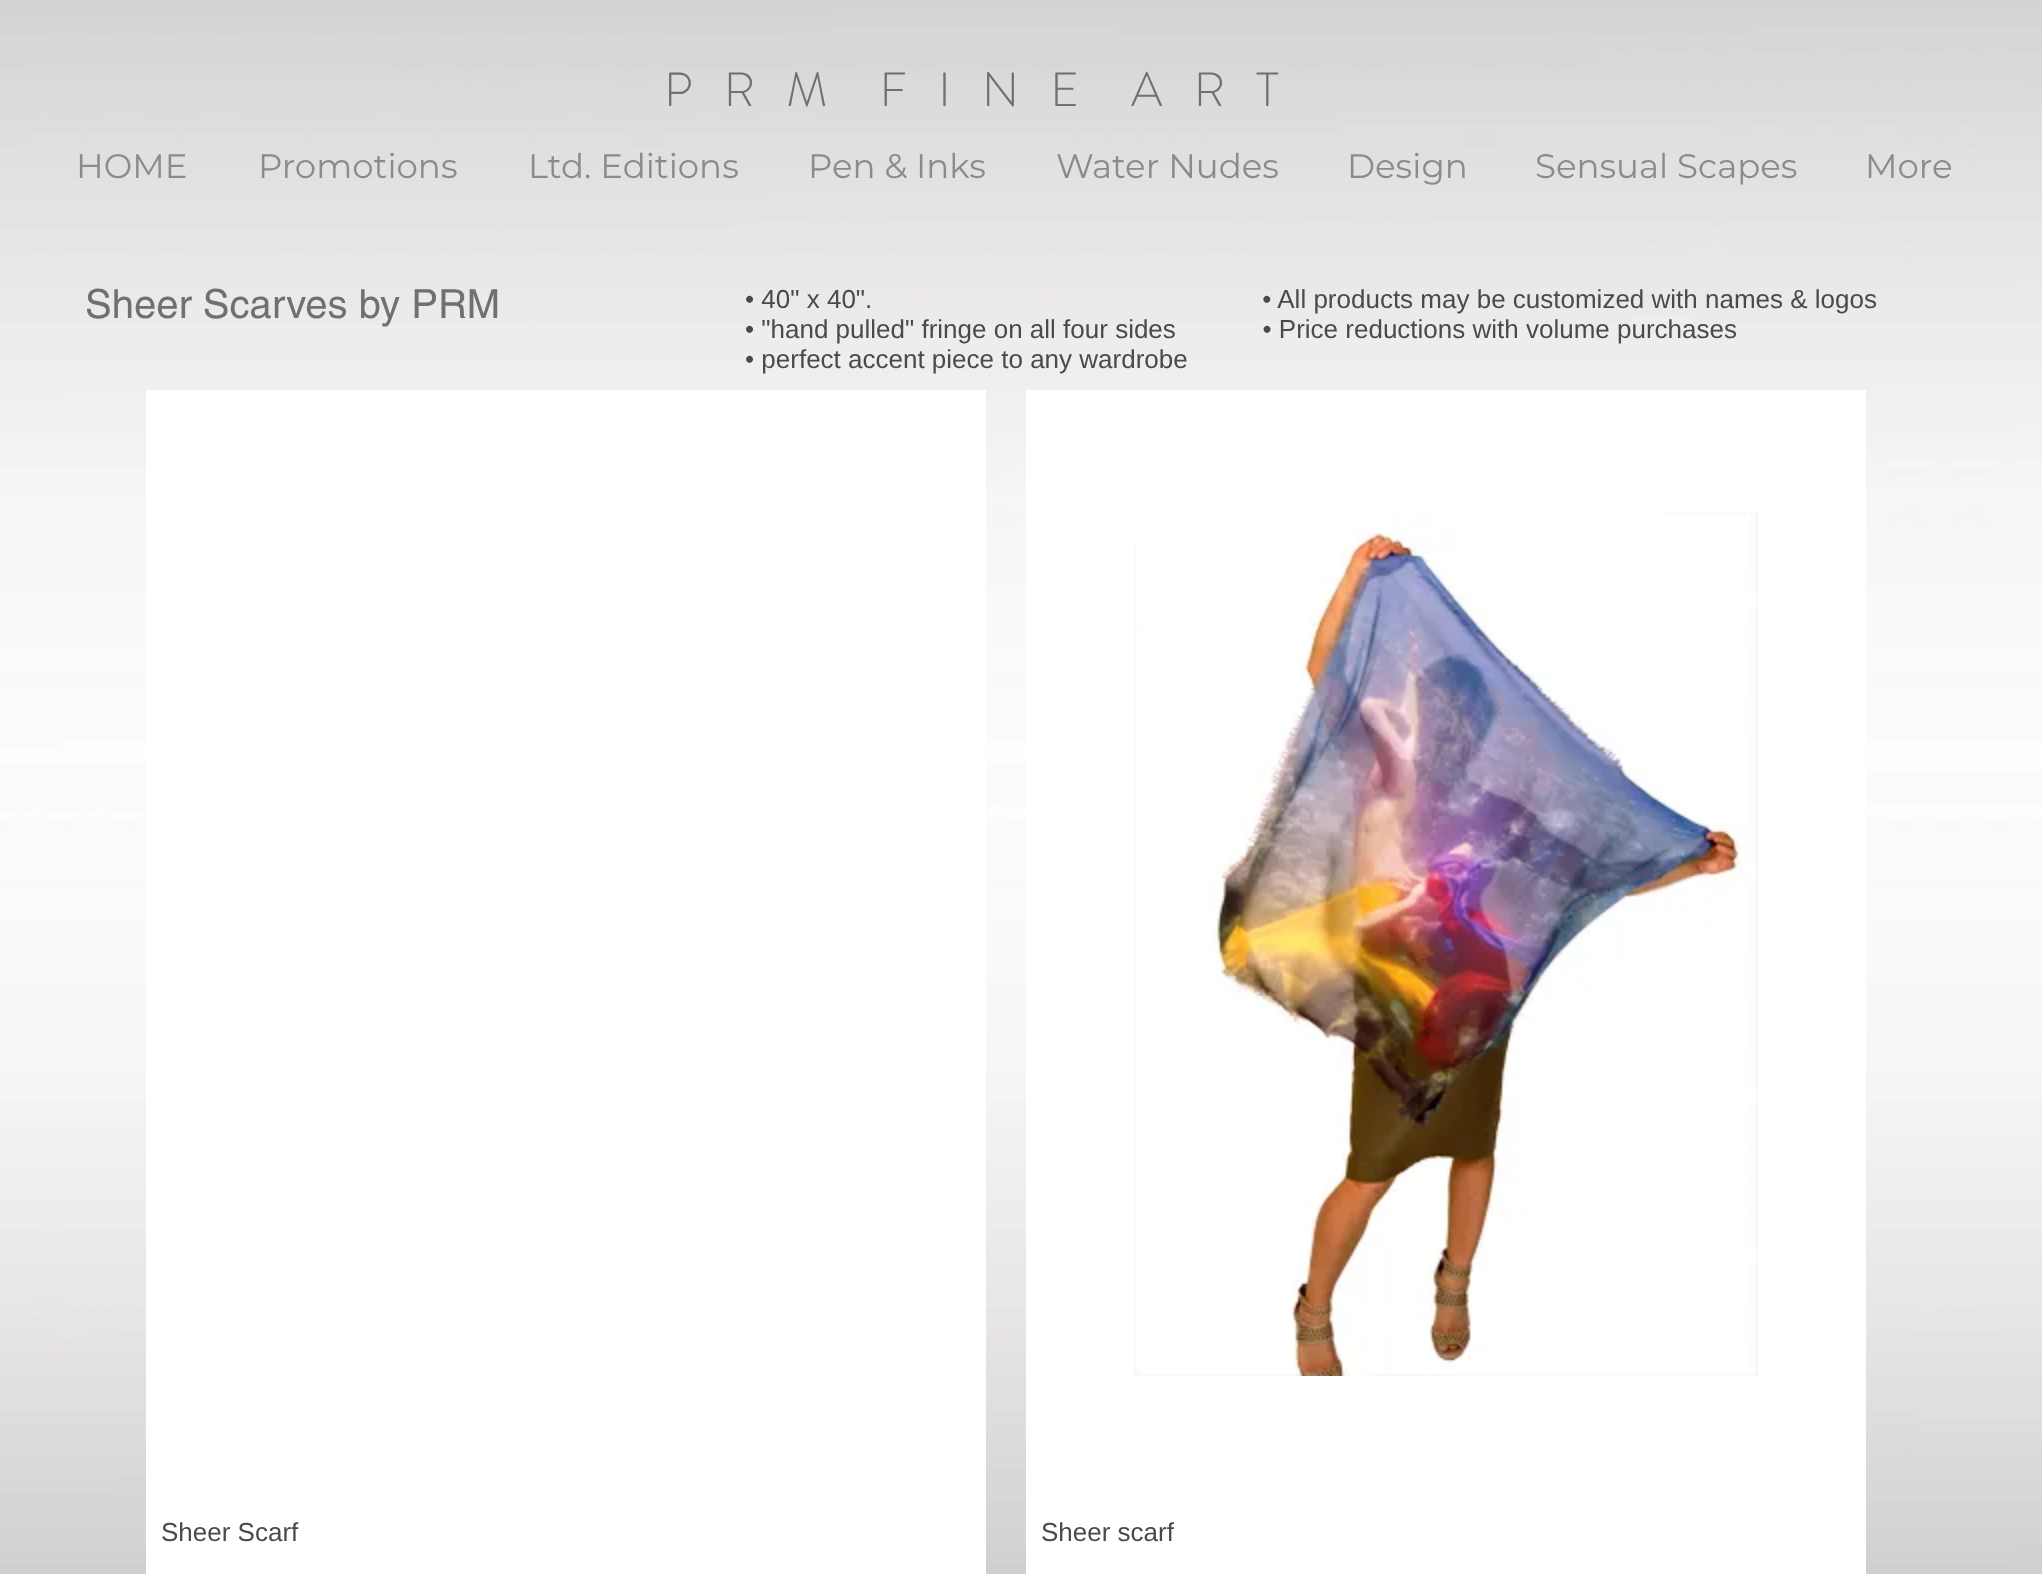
async function draw(canvas) {
	canvas.width = 2042;
	canvas.height = 1574;
	const c = canvas.getContext('2d');
	c.miterLimit = 4;
	c.fontKerning = 'normal';
	async function loadImage(src) {
		const img = new Image();
		img.src = src;
		await img.decode();
		return img;
	}

	c.fillStyle = '#fff';
	c.fillRect(0, 0, 2042, 1574);
	c.drawImage(await loadImage('img1.png'), 0, 0, 2042, 1574);
	c.font = '300 48px "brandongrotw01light"';
	c.fillStyle = '#717070';
	c.fillText('P   R   M     F   I   N   E     A   R   T', 664, 106);
	c.font = '34px Montserrat';
	c.fillStyle = '#8a8b8f';
	for (const [text, x, y] of [
		['HOME', 76, 178],
		['Promotions', 258, 178],
		['Ltd. Editions', 528, 178],
		['Pen & Inks', 808, 178],
		['Water Nudes', 1056, 178],
		['Design', 1347, 178],
		['Sensual Scapes', 1535, 178],
		['More', 1865, 178],
	]) {
		c.fillText(text, x, y);
	}
	c.font = '40px helvetica';
	c.fillStyle = '#717070';
	c.fillText('Sheer Scarves by PRM', 85, 318);
	c.font = '26px Liberation Sans';
	c.fillStyle = '#4a4a4a';
	for (const [text, x, y] of [
		['• 40" x 40".                                                      • All products may be customized with names & logos', 745, 308],
		['• "hand pulled" fringe on all four sides            • Price reductions with volume purchases', 745, 338],
		['• perfect accent piece to any wardrobe', 745, 368],
	]) {
		c.fillText(text, x, y);
	}
	c.fillStyle = '#fff';
	c.fillRect(146, 390, 840, 1184);
	c.fillStyle = '#4a4a4a';
	c.fillText('Sheer Scarf', 161, 1541);
	c.fillStyle = '#fff';
	c.fillRect(1026, 390, 840, 1184);
	c.drawImage(await loadImage('img2.png'), 1134, 512, 624, 864);
	c.fillStyle = '#4a4a4a';
	c.fillText('Sheer scarf', 1041, 1541);
}

draw(document.querySelector('canvas'));
